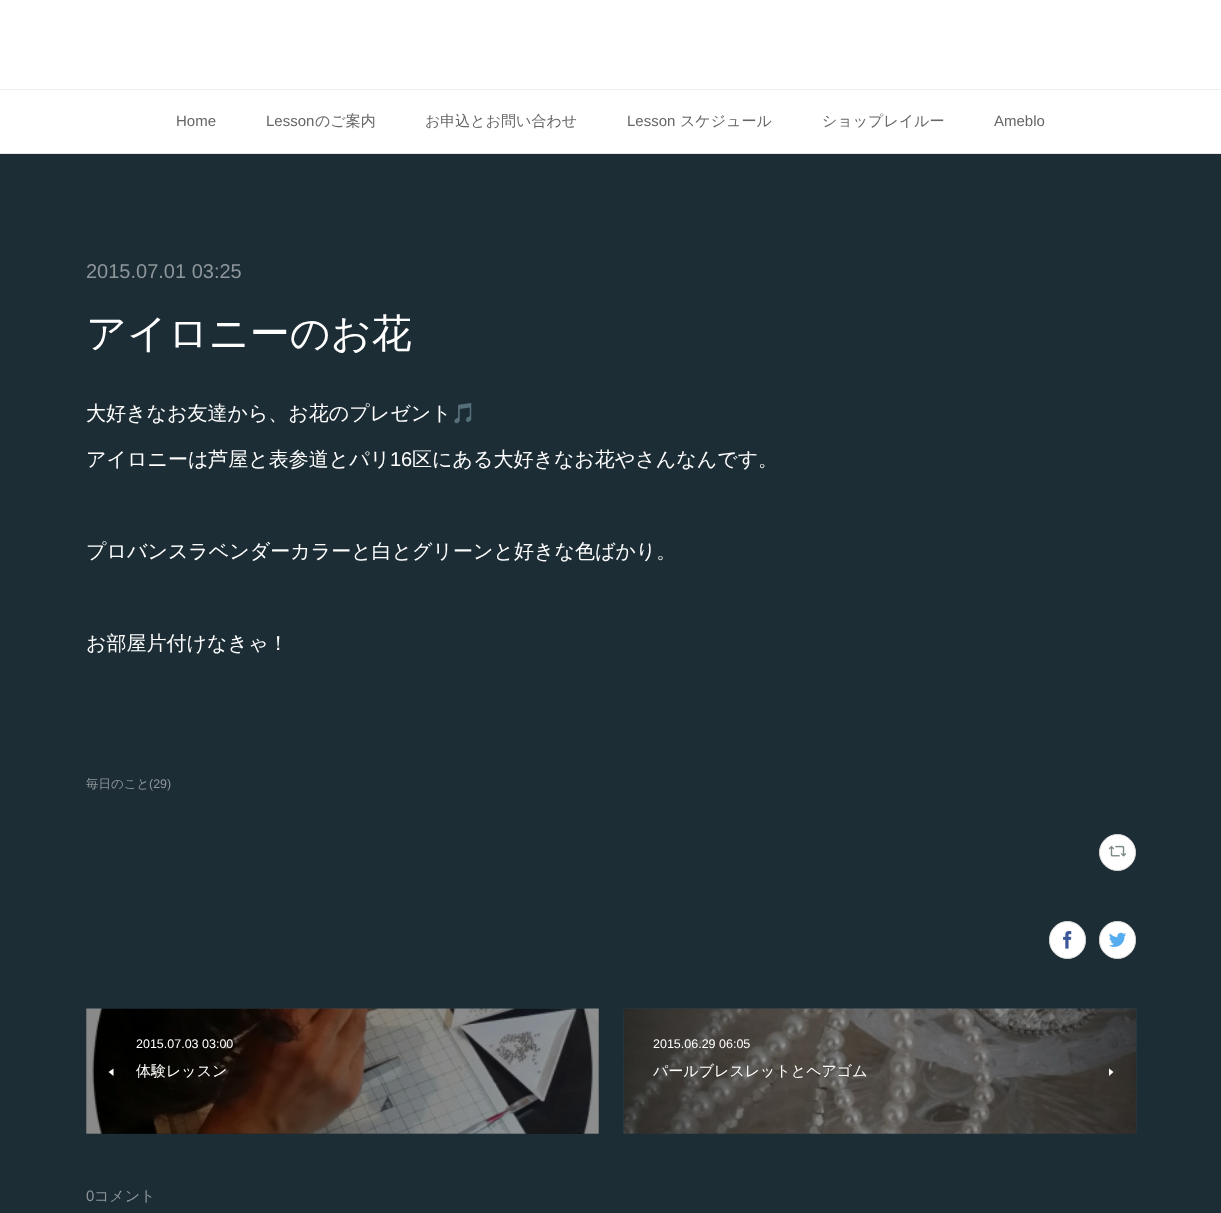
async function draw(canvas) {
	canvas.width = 1221;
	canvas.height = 1213;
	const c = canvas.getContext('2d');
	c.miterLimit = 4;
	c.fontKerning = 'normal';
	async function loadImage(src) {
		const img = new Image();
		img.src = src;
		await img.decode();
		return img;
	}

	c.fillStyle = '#1c2d35';
	c.fillRect(0, 0, 1221, 1213);
	for (const [x, y, w, h, color] of [
		[86, 1009, 513, 125, '#111b20'],
		[0, 0, 1221, 89, '#fff'],
		[0, 89, 1221, 1, '#eee'],
		[0, 90, 1221, 63, '#fff'],
		[0, 153, 1221, 1, '#e6e6e6'],
	]) {
		c.fillStyle = color;
		c.fillRect(x, y, w, h);
	}
	c.font = '15px Liberation Sans';
	c.fillStyle = '#666';
	c.fillText('Home', 176, 126);
	c.fillText('Lesson', 266, 126);
	c.font = '500 15px WenQuanYi Zen Hei';
	c.fillText('のご案内', 315, 126);
	c.fillText('お申込とお問い合わせ', 425, 126);
	c.font = '15px Liberation Sans';
	c.fillText('Lesson', 627, 126);
	c.font = '500 15px WenQuanYi Zen Hei';
	c.fillText('スケジュール', 680, 126);
	c.fillText('ショップレイルー', 822, 126);
	c.font = '15px Liberation Sans';
	c.fillText('Ameblo', 994, 126);
	c.font = '20px Liberation Sans';
	c.fillStyle = '#8e969a';
	c.fillText('2015.07.01 03:25', 86, 278);
	c.font = '500 40px WenQuanYi Zen Hei';
	c.fillStyle = '#fff';
	c.fillText('アイロニーのお花', 86, 347);
	c.font = '500 20px WenQuanYi Zen Hei';
	c.fillText('大好きなお友達から、お花のプレゼント', 86, 420);
	c.font = '20px Noto Color Emoji';
	c.fillText('🎵', 451, 420);
	c.font = '500 20px WenQuanYi Zen Hei';
	c.fillText('アイロニーは芦屋と表参道とパリ', 86, 466);
	c.font = '20px Liberation Sans';
	c.fillText('16', 390, 466);
	c.font = '500 20px WenQuanYi Zen Hei';
	for (const [text, x, y] of [
		['区にある大好きなお花やさんなんです。', 412, 466],
		['プロバンスラベンダーカラーと白とグリーンと好きな色ばかり。', 86, 558],
		['お部屋片付けなきゃ！', 86, 650],
	]) {
		c.fillText(text, x, y);
	}
	c.font = '500 12.5px WenQuanYi Zen Hei';
	c.fillStyle = '#8e969a';
	c.fillText('毎日のこと', 86, 788);
	c.font = '12.5px Liberation Sans';
	c.fillText('(29)', 149, 788);
	c.fillStyle = '#fff';
	c.beginPath();
	c.arc(1117.5, 852.5, 18, 0, 2 * Math.PI);
	c.fill();
	c.strokeStyle = '#ddd';
	c.stroke();
	c.drawImage(await loadImage('img1.png'), 1108, 845, 19, 12);
	c.beginPath();
	c.roundRect(1049.5, 921.5, 36, 37, 18);
	c.fill();
	c.stroke();
	c.drawImage(await loadImage('img2.png'), 1063, 931, 9, 18);
	c.beginPath();
	c.roundRect(1099.5, 921.5, 36, 37, 18);
	c.fill();
	c.stroke();
	c.drawImage(await loadImage('img3.png'), 1109, 932, 18, 15);
	c.drawImage(await loadImage('img4.png'), 86, 1008, 513, 126);
	c.fillText('2015.07.03 03:00', 136, 1048);
	c.beginPath();
	c.moveTo(113.5, 1076);
	c.lineTo(113.5, 1068.5);
	c.lineTo(108.5, 1072);
	c.closePath();
	c.fill();
	c.font = '500 15px WenQuanYi Zen Hei';
	c.fillText('体験レッスン', 136, 1076);
	c.drawImage(await loadImage('img5.png'), 623, 1008, 514, 126);
	c.font = '12.5px Liberation Sans';
	c.fillText('2015.06.29 06:05', 653, 1048);
	c.font = '500 15px WenQuanYi Zen Hei';
	c.fillText('パールブレスレットとヘアゴム', 653, 1076);
	c.beginPath();
	c.moveTo(1109, 1068.5);
	c.lineTo(1109, 1076);
	c.lineTo(1113.5, 1072);
	c.closePath();
	c.fill();
	c.font = '15px Liberation Sans';
	c.fillStyle = '#8e969a';
	c.fillText('0', 86, 1201);
	c.font = '500 15px WenQuanYi Zen Hei';
	c.fillText('コメント', 94, 1201);
}

draw(document.querySelector('canvas'));
